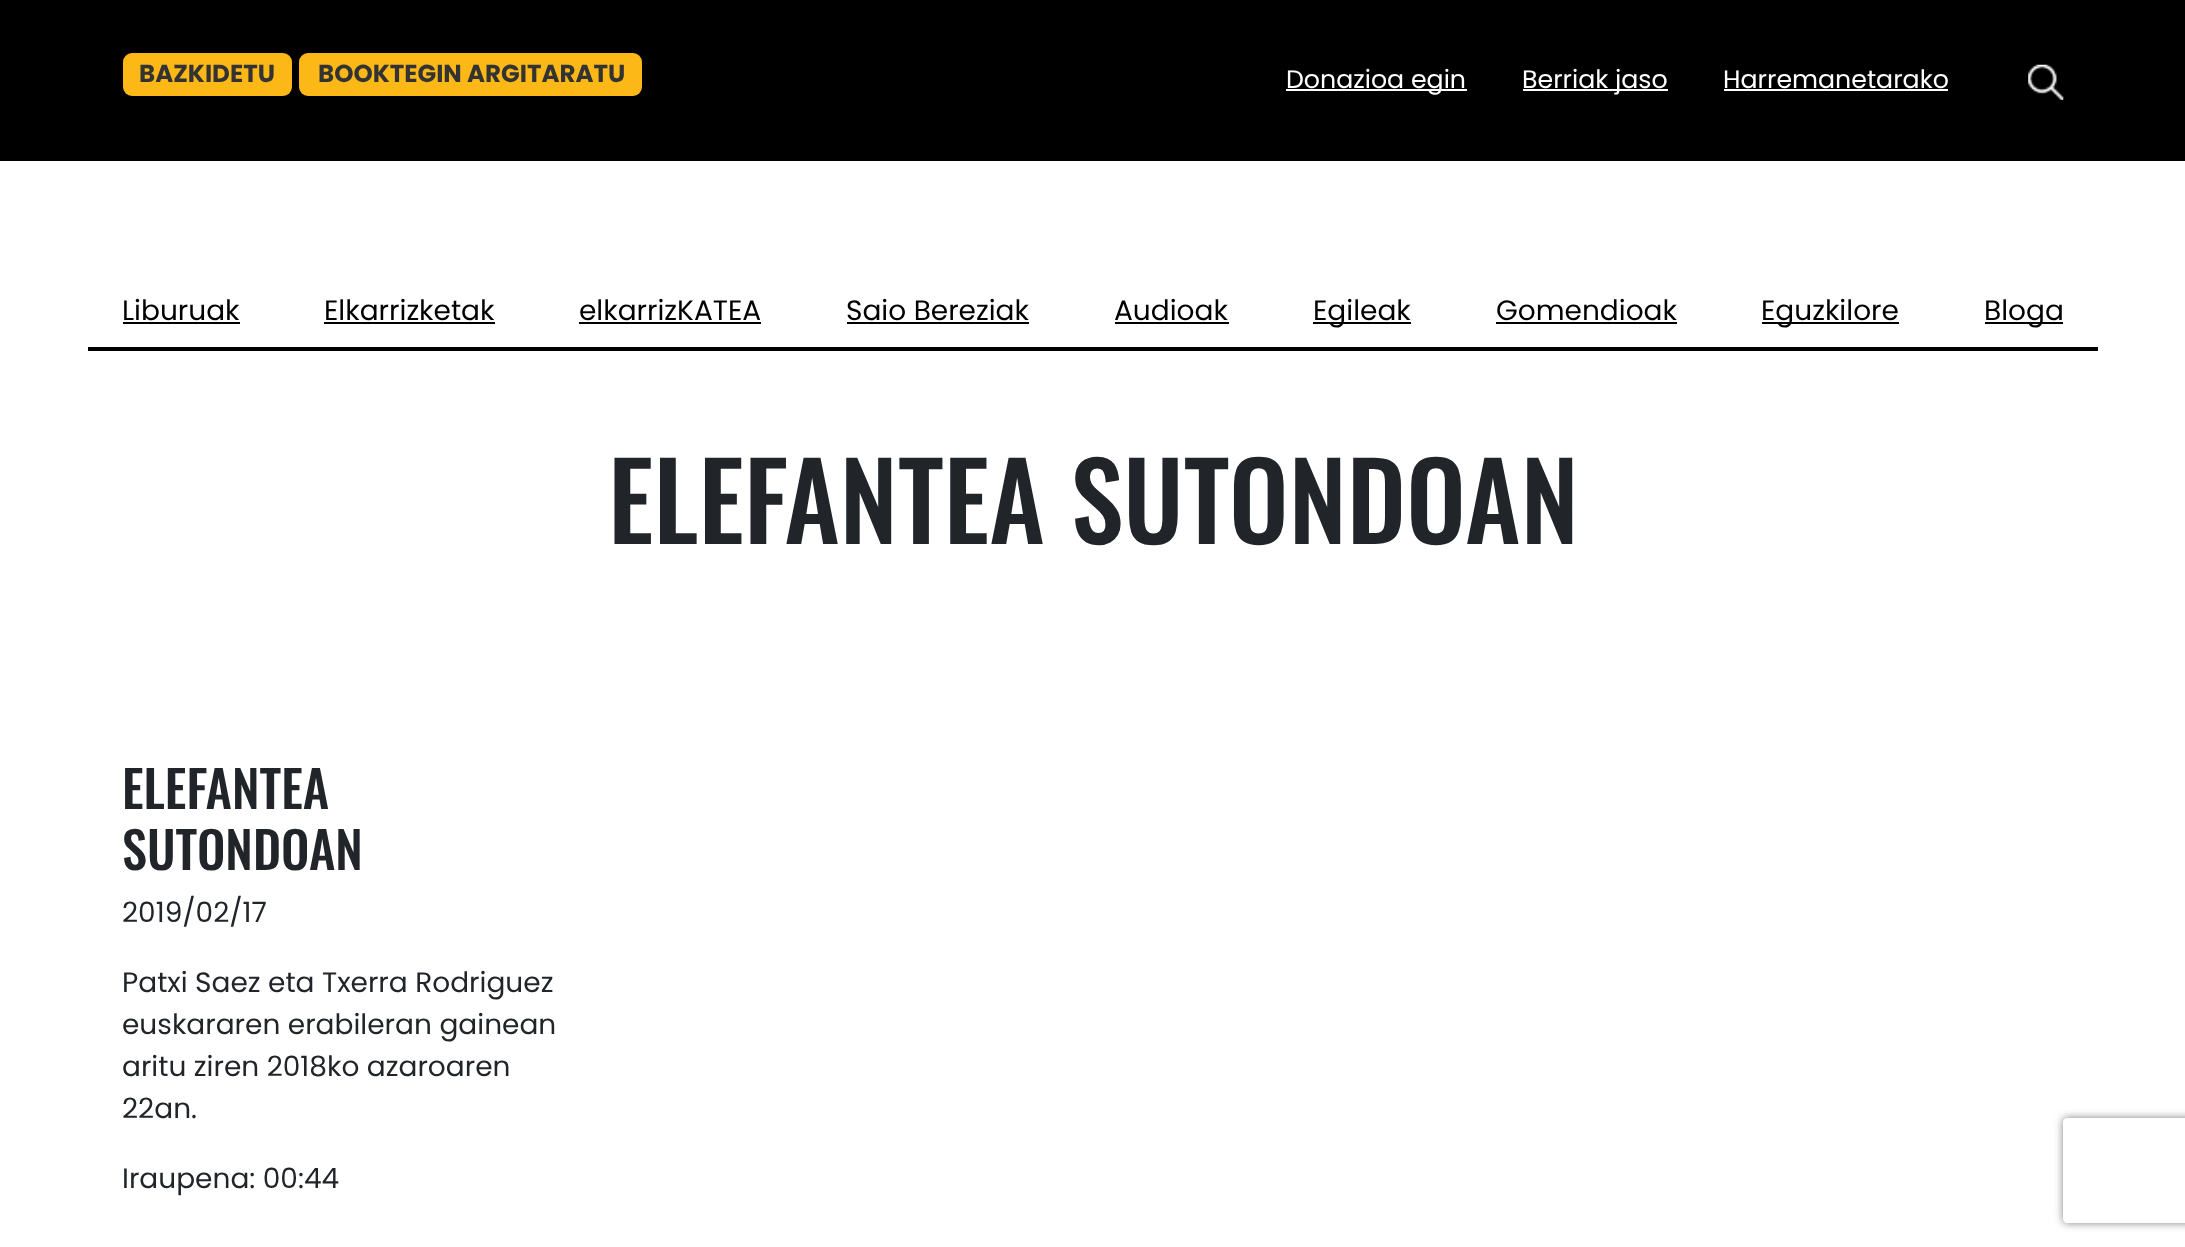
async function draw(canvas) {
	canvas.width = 2185;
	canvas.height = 1247;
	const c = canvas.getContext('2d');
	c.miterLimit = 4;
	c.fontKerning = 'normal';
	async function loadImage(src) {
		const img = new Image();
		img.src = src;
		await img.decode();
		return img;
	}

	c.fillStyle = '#fff';
	c.fillRect(0, 0, 2185, 1247);
	c.fillStyle = '#000';
	c.fillRect(0, 0, 2185, 161);
	c.fillStyle = '#fbb816';
	c.beginPath();
	c.roundRect(123, 53, 169, 43, 9);
	c.fill();
	c.font = 'bold 24.5px Poppins';
	c.fillStyle = '#333';
	c.fillText('BAZKIDETU', 139, 82);
	c.fillStyle = '#fbb816';
	c.beginPath();
	c.roundRect(299, 53, 343, 43, 9);
	c.fill();
	c.fillStyle = '#333';
	c.fillText('BOOKTEGIN ARGITARATU', 318, 82);
	c.fillStyle = '#fff';
	c.fillRect(1286, 89, 181, 2);
	c.font = '25.25px Poppins';
	c.fillText('Donazioa egin', 1286, 88);
	c.fillRect(1523, 89, 145, 2);
	c.fillText('Berriak jaso', 1522, 88);
	c.fillText('Harremanetarako', 1723, 88);
	c.fillRect(1724, 89, 224, 2);
	c.drawImage(await loadImage('img1.png'), 2028, 64, 36, 36);
	c.fillStyle = '#000';
	c.fillRect(88, 347, 2010, 4);
	c.font = '28px Poppins';
	c.fillText('Liburuak', 122, 320);
	c.fillRect(123, 322, 117, 2);
	c.fillText('Elkarrizketak', 324, 320);
	c.fillRect(324, 322, 171, 2);
	c.fillText('elkarrizKATEA', 579, 320);
	c.fillRect(579, 322, 182, 2);
	c.fillText('Saio Bereziak', 846, 320);
	c.fillRect(847, 322, 182, 2);
	c.fillText('Audioak', 1114, 320);
	c.fillRect(1115, 322, 114, 2);
	c.fillRect(1313, 322, 98, 2);
	c.fillText('Egileak', 1313, 320);
	c.fillText('Gomendioak', 1496, 320);
	c.fillRect(1496, 322, 181, 2);
	c.fillRect(1762, 322, 137, 2);
	c.fillText('Eguzkilore', 1761, 320);
	c.fillRect(1985, 322, 78, 2);
	c.fillText('Bloga', 1984, 320);
	c.font = '500 106.5px Oswald';
	c.fillStyle = '#212529';
	c.fillText('ELEFANTEA SUTONDOAN', 608, 544);
	c.font = '500 50.5px Oswald';
	c.fillText('ELEFANTEA', 122, 809);
	c.fillText('SUTONDOAN', 122, 870);
	c.font = '28px Poppins';
	for (const [text, x, y] of [
		['2019/02/17', 122, 922],
		['Patxi Saez eta Txerra Rodriguez', 122, 992],
		['euskararen erabileran gainean', 122, 1034],
		['aritu ziren 2018ko azaroaren', 122, 1076],
		['22an.', 122, 1118],
		['Iraupena: 00:44', 122, 1188],
	]) {
		c.fillText(text, x, y);
	}
	c.save();
	c.beginPath();
	c.moveTo(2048, 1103);
	c.lineTo(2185, 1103);
	c.lineTo(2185, 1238);
	c.lineTo(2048, 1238);
	c.closePath();
	c.moveTo(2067, 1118);
	c.lineTo(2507, 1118);
	c.bezierCurveTo(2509, 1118, 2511, 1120, 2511, 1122);
	c.lineTo(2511, 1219);
	c.bezierCurveTo(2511, 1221, 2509, 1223, 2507, 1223);
	c.lineTo(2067, 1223);
	c.bezierCurveTo(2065, 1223, 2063, 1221, 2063, 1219);
	c.lineTo(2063, 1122);
	c.bezierCurveTo(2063, 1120, 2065, 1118, 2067, 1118);
	c.closePath();
	c.clip('evenodd');
	c.fillStyle = '#808080';
	c.filter = 'blur(4.5px)';
	c.beginPath();
	c.roundRect(2063, 1118, 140, 105, 4);
	c.fill();
	c.filter = 'none';
	c.restore();
}

draw(document.querySelector('canvas'));
